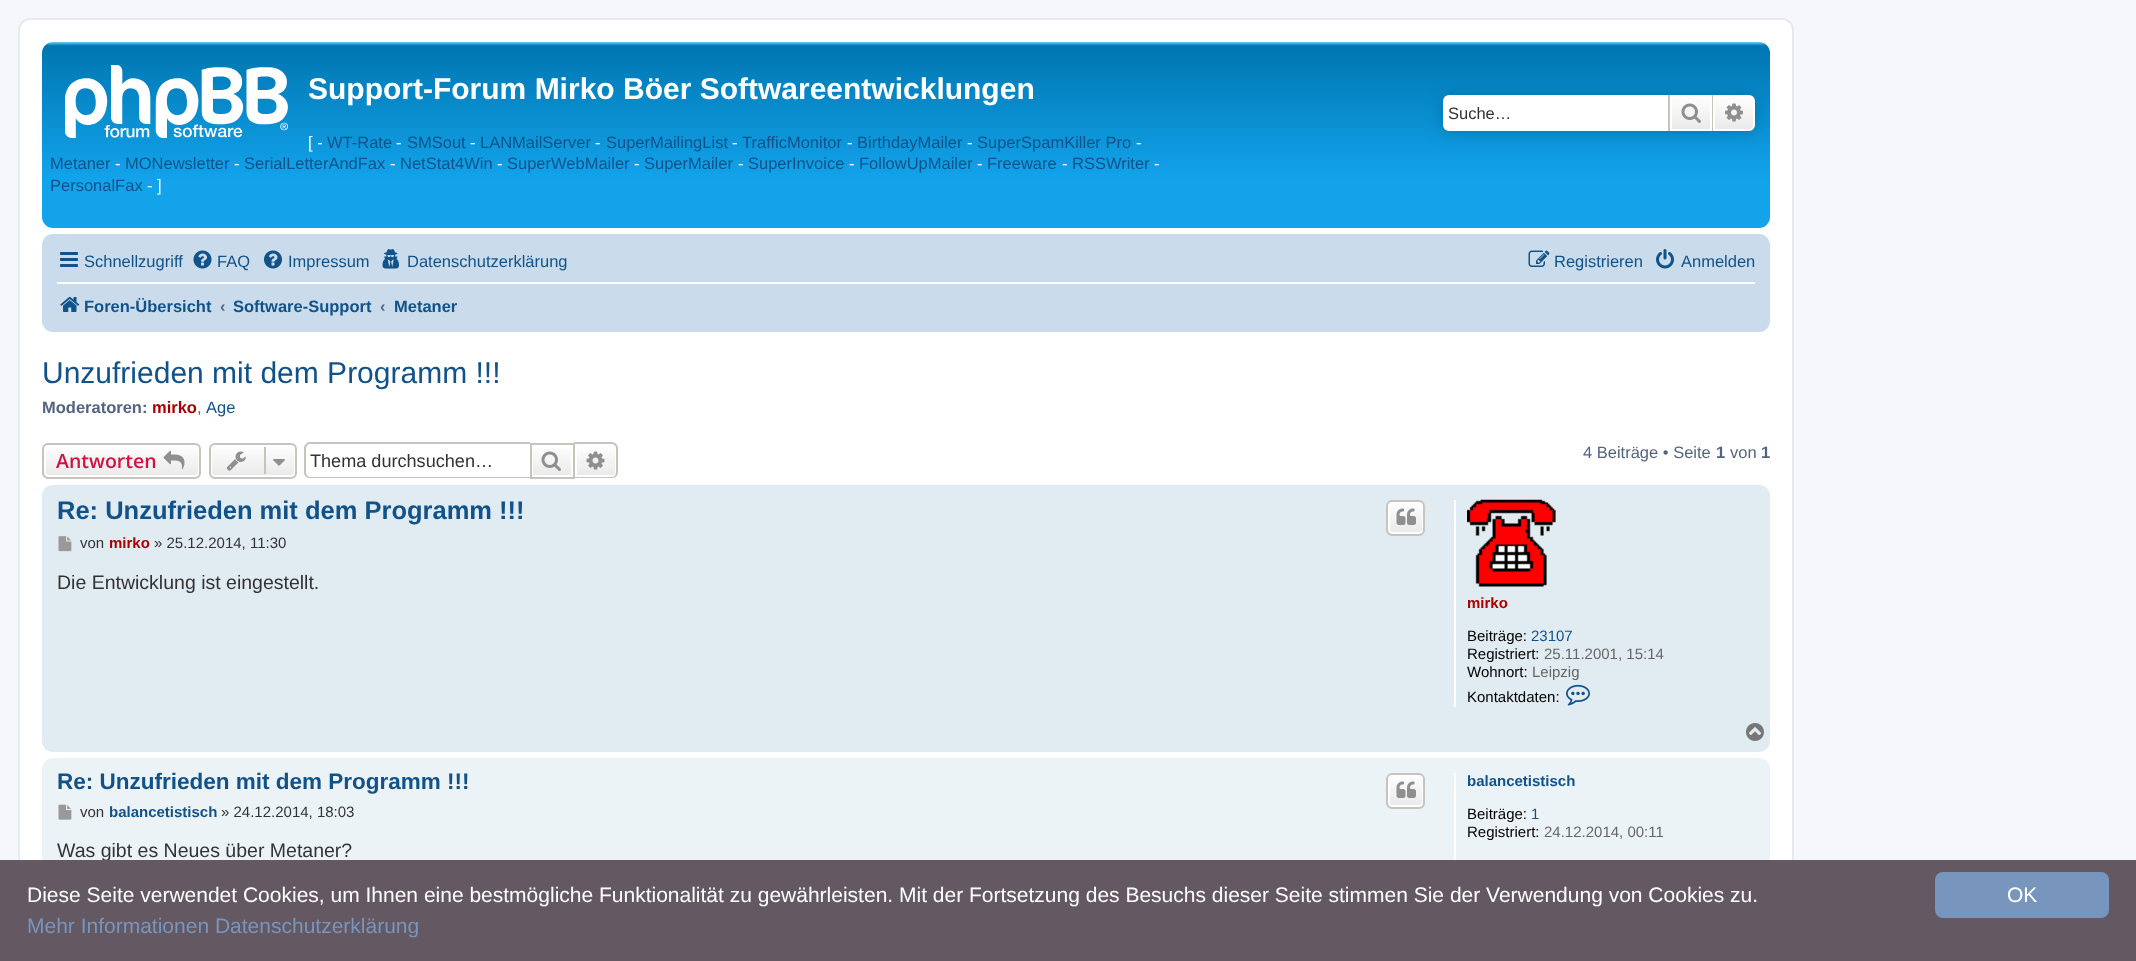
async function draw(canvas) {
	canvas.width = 2136;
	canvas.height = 961;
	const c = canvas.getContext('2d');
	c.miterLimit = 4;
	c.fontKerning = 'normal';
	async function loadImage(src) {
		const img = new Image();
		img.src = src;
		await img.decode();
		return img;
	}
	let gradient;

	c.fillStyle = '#f5f7fa';
	c.fillRect(0, 0, 2136, 961);
	c.fillStyle = '#fff';
	c.beginPath();
	c.roundRect(19, 19, 1774, 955, 11);
	c.fill();
	c.strokeStyle = '#e6e9ed';
	c.lineWidth = 2;
	c.stroke();
	gradient = c.createLinearGradient(906, 42, 906, 228);
	gradient.addColorStop(0, '#6aceff');
	gradient.addColorStop(0.02, '#0076b1');
	gradient.addColorStop(0.74, '#12a3eb');
	gradient.addColorStop(1, '#12a3eb');
	c.fillStyle = gradient;
	c.beginPath();
	c.roundRect(42, 42, 1728, 186, 11);
	c.fill();
	c.drawImage(await loadImage('img1.png'), 65, 65, 223, 73);
	c.font = 'bold 30px Liberation Sans';
	c.fillStyle = '#fff';
	c.fillText('Support-Forum Mirko Böer Softwareentwicklungen', 308, 99);
	c.font = '16.5px Liberation Sans';
	c.fillText('[ -', 308, 148);
	c.fillStyle = '#105289';
	c.fillText('WT-Rate', 327, 148);
	c.fillStyle = '#fff';
	c.fillText('-', 396, 148);
	c.fillStyle = '#105289';
	c.fillText('SMSout', 407, 148);
	c.fillStyle = '#fff';
	c.fillText('-', 470, 148);
	c.fillStyle = '#105289';
	c.fillText('LANMailServer', 480, 148);
	c.fillStyle = '#fff';
	c.fillText('-', 595, 148);
	c.fillStyle = '#105289';
	c.fillText('SuperMailingList', 606, 148);
	c.fillStyle = '#fff';
	c.fillText('-', 732, 148);
	c.fillStyle = '#105289';
	c.fillText('TrafficMonitor', 742, 148);
	c.fillStyle = '#fff';
	c.fillText('-', 847, 148);
	c.fillStyle = '#105289';
	c.fillText('BirthdayMailer', 857, 148);
	c.fillStyle = '#fff';
	c.fillText('-', 967, 148);
	c.fillStyle = '#105289';
	c.fillText('SuperSpamKiller Pro', 977, 148);
	c.fillStyle = '#fff';
	c.fillText('-', 1136, 148);
	c.fillStyle = '#105289';
	c.fillText('Metaner', 50, 169);
	c.fillStyle = '#fff';
	c.fillText('-', 115, 169);
	c.fillStyle = '#105289';
	c.fillText('MONewsletter', 125, 169);
	c.fillStyle = '#fff';
	c.fillText('-', 234, 169);
	c.fillStyle = '#105289';
	c.fillText('SerialLetterAndFax', 244, 169);
	c.fillStyle = '#fff';
	c.fillText('-', 390, 169);
	c.fillStyle = '#105289';
	c.fillText('NetStat4Win', 400, 169);
	c.fillStyle = '#fff';
	c.fillText('-', 497, 169);
	c.fillStyle = '#105289';
	c.fillText('SuperWebMailer', 507, 169);
	c.fillStyle = '#fff';
	c.fillText('-', 634, 169);
	c.fillStyle = '#105289';
	c.fillText('SuperMailer', 644, 169);
	c.fillStyle = '#fff';
	c.fillText('-', 738, 169);
	c.fillStyle = '#105289';
	c.fillText('SuperInvoice', 748, 169);
	c.fillStyle = '#fff';
	c.fillText('-', 849, 169);
	c.fillStyle = '#105289';
	c.fillText('FollowUpMailer', 859, 169);
	c.fillStyle = '#fff';
	c.fillText('-', 977, 169);
	c.fillStyle = '#105289';
	c.fillText('Freeware', 987, 169);
	c.fillStyle = '#fff';
	c.fillText('-', 1062, 169);
	c.fillStyle = '#105289';
	c.fillText('RSSWriter', 1072, 169);
	c.fillStyle = '#fff';
	c.fillText('-', 1154, 169);
	c.fillStyle = '#105289';
	c.fillText('PersonalFax', 50, 191);
	c.fillStyle = '#fff';
	c.fillText('- ]', 147, 191);
	c.fillStyle = '#0075b0';
	c.filter = 'blur(7.5px)';
	c.beginPath();
	c.roundRect(1443, 95, 312, 36, 6);
	c.fill();
	c.filter = 'none';
	c.fillStyle = '#fff';
	c.beginPath();
	c.roundRect(1443, 95, 225, 36, [6, 0, 0, 6]);
	c.fill();
	c.fillStyle = '#333';
	c.fillText('Suche…', 1448, 119);
	gradient = c.createLinearGradient(1691, 95, 1691, 131);
	gradient.addColorStop(0, '#fff');
	gradient.addColorStop(1, '#e9e9e9');
	c.fillStyle = gradient;
	c.fillRect(1672, 97, 38, 32);
	c.strokeStyle = '#fff';
	c.strokeRect(1671, 96, 40, 34);
	c.fillStyle = '#c7c3bf';
	c.fillRect(1712, 95, 1, 36);
	c.fillRect(1668, 95, 2, 36);
	c.drawImage(await loadImage('img2.png'), 1681, 103, 20, 20);
	gradient = c.createLinearGradient(1734, 95, 1734, 131);
	gradient.addColorStop(0, '#fff');
	gradient.addColorStop(1, '#e9e9e9');
	c.fillStyle = gradient;
	c.beginPath();
	c.roundRect(1714, 96, 40, 34, [0, 5, 5, 0]);
	c.fill();
	c.stroke();
	c.drawImage(await loadImage('img3.png'), 1725, 103, 18, 19);
	c.fillStyle = '#cadceb';
	c.beginPath();
	c.roundRect(42, 234, 1728, 98, 11);
	c.fill();
	c.drawImage(await loadImage('img4.png'), 60, 252, 18, 15);
	c.fillStyle = '#105289';
	c.fillText('Schnellzugriff', 84, 267);
	c.drawImage(await loadImage('img5.png'), 193, 250, 19, 19);
	c.fillText('FAQ', 217, 267);
	c.drawImage(await loadImage('img6.png'), 264, 250, 18, 19);
	c.fillText('Impressum', 288, 267);
	c.drawImage(await loadImage('img7.png'), 382, 249, 17, 20);
	c.fillText('Datenschutzerklärung', 407, 267);
	c.drawImage(await loadImage('img8.png'), 1528, 250, 22, 17);
	c.fillText('Registrieren', 1554, 267);
	c.drawImage(await loadImage('img9.png'), 1656, 249, 18, 20);
	c.fillText('Anmelden', 1681, 267);
	c.fillStyle = '#fff';
	c.fillRect(57, 282, 1698, 2);
	c.drawImage(await loadImage('img10.png'), 60, 297, 20, 15);
	c.font = 'bold 16.5px Liberation Sans';
	c.fillStyle = '#105289';
	c.fillText('Foren-Übersicht', 84, 312);
	c.fillStyle = '#536482';
	c.fillText('‹', 220, 312);
	c.fillStyle = '#105289';
	c.fillText('Software-Support', 233, 312);
	c.fillStyle = '#536482';
	c.fillText('‹', 380, 312);
	c.fillStyle = '#105289';
	c.fillText('Metaner', 394, 312);
	c.font = '30px Liberation Sans';
	c.fillText('Unzufrieden mit dem Programm !!!', 42, 383);
	c.font = 'bold 16.5px Liberation Sans';
	c.fillStyle = '#536482';
	c.fillText('Moderatoren:', 42, 413);
	c.fillStyle = '#a00';
	c.fillText('mirko', 152, 413);
	c.font = '16.5px Liberation Sans';
	c.fillStyle = '#536482';
	c.fillText(',', 197, 413);
	c.fillStyle = '#105289';
	c.fillText('Age', 206, 413);
	c.save();
	c.beginPath();
	c.roundRect(42, 443, 159, 36, 6);
	c.clip();
	gradient = c.createLinearGradient(122, 444, 122, 477);
	gradient.addColorStop(0, '#fff');
	gradient.addColorStop(1, '#e9e9e9');
	c.fillStyle = gradient;
	c.fillRect(42, 444, 159, 33);
	c.restore();
	c.beginPath();
	c.roundRect(45, 445, 154, 31, 4);
	c.stroke();
	c.beginPath();
	c.roundRect(43, 444, 157, 34, 5);
	c.strokeStyle = '#c7c3bf';
	c.stroke();
	c.font = '600 19.5px Open Sans';
	c.fillStyle = '#d31141';
	c.fillText('Antworten', 56, 468);
	c.drawImage(await loadImage('img11.png'), 163, 450, 22, 20);
	c.save();
	c.beginPath();
	c.roundRect(209, 443, 88, 36, 6);
	c.clip();
	gradient = c.createLinearGradient(253, 444, 253, 477);
	gradient.addColorStop(0, '#fff');
	gradient.addColorStop(1, '#e9e9e9');
	c.fillStyle = gradient;
	c.fillRect(209, 444, 88, 33);
	c.restore();
	c.beginPath();
	c.roundRect(211, 445, 84, 31, 4);
	c.strokeStyle = '#fff';
	c.stroke();
	c.beginPath();
	c.roundRect(210, 444, 86, 34, 5);
	c.strokeStyle = '#c7c3bf';
	c.stroke();
	c.drawImage(await loadImage('img12.png'), 226, 451, 20, 20);
	c.fillStyle = '#c7c3bf';
	c.fillRect(264, 447, 2, 27);
	c.drawImage(await loadImage('img13.png'), 273, 459, 12, 7);
	c.beginPath();
	c.moveTo(310, 442);
	c.lineTo(530, 442);
	c.lineTo(530, 478);
	c.lineTo(310, 478);
	c.bezierCurveTo(307, 478, 304, 476, 304, 472);
	c.lineTo(304, 448);
	c.bezierCurveTo(304, 445, 307, 442, 310, 442);
	c.closePath();
	c.moveTo(310, 444);
	c.lineTo(530, 444);
	c.lineTo(530, 477);
	c.lineTo(310, 477);
	c.bezierCurveTo(308, 477, 306, 475, 306, 472);
	c.lineTo(306, 448);
	c.bezierCurveTo(306, 446, 308, 444, 310, 444);
	c.closePath();
	c.fill('evenodd');
	c.font = '18.1px Liberation Sans';
	c.fillStyle = '#333';
	c.fillText('Thema durchsuchen…', 310, 467);
	gradient = c.createLinearGradient(552, 444, 552, 477);
	gradient.addColorStop(0, '#fff');
	gradient.addColorStop(1, '#e9e9e9');
	c.fillStyle = gradient;
	c.fillRect(533, 448, 38, 27);
	c.strokeRect(531, 444, 43, 34);
	c.drawImage(await loadImage('img14.png'), 541, 451, 20, 20);
	gradient = c.createLinearGradient(596, 444, 596, 477);
	gradient.addColorStop(0, '#fff');
	gradient.addColorStop(1, '#e9e9e9');
	c.fillStyle = gradient;
	c.beginPath();
	c.roundRect(576, 445, 40, 31, [0, 4, 4, 0]);
	c.fill();
	c.strokeStyle = '#fff';
	c.stroke();
	c.fillStyle = '#c7c3bf';
	c.beginPath();
	c.moveTo(574, 442);
	c.lineTo(612, 442);
	c.bezierCurveTo(615, 442, 618, 445, 618, 448);
	c.lineTo(618, 472);
	c.bezierCurveTo(618, 476, 615, 478, 612, 478);
	c.lineTo(574, 478);
	c.closePath();
	c.moveTo(574, 444);
	c.lineTo(612, 444);
	c.bezierCurveTo(614, 444, 616, 446, 616, 448);
	c.lineTo(616, 472);
	c.bezierCurveTo(616, 475, 614, 477, 612, 477);
	c.lineTo(574, 477);
	c.closePath();
	c.fill('evenodd');
	c.drawImage(await loadImage('img15.png'), 586, 451, 19, 19);
	c.font = '16.5px Liberation Sans';
	c.fillStyle = '#536482';
	c.fillText('4 Beiträge • Seite', 1583, 458);
	c.font = 'bold 16.5px Liberation Sans';
	c.fillText('1', 1716, 458);
	c.font = '16.5px Liberation Sans';
	c.fillText('von', 1730, 458);
	c.font = 'bold 16.5px Liberation Sans';
	c.fillText('1', 1761, 458);
	c.fillStyle = '#e1ebf2';
	c.beginPath();
	c.roundRect(42, 485, 1728, 267, 11);
	c.fill();
	c.font = 'bold 25.5px Liberation Sans';
	c.fillStyle = '#105289';
	c.fillText('Re: Unzufrieden mit dem Programm !!!', 57, 519);
	c.save();
	c.beginPath();
	c.roundRect(1386, 500, 39, 36, 6);
	c.clip();
	gradient = c.createLinearGradient(1406, 501, 1406, 534);
	gradient.addColorStop(0, '#fff');
	gradient.addColorStop(1, '#e9e9e9');
	c.fillStyle = gradient;
	c.fillRect(1386, 501, 39, 33);
	c.restore();
	c.beginPath();
	c.roundRect(1389, 502, 34, 31, 4);
	c.stroke();
	c.beginPath();
	c.roundRect(1387, 501, 37, 34, 5);
	c.strokeStyle = '#c7c3bf';
	c.stroke();
	c.drawImage(await loadImage('img16.png'), 1396, 508, 20, 17);
	c.drawImage(await loadImage('img17.png'), 58, 536, 14, 16);
	c.font = '15px Liberation Sans';
	c.fillStyle = '#333';
	c.fillText('von', 80, 548);
	c.font = 'bold 15px Liberation Sans';
	c.fillStyle = '#a00';
	c.fillText('mirko', 109, 548);
	c.font = '15px Liberation Sans';
	c.fillStyle = '#333';
	c.fillText('» 25.12.2014, 11:30', 154, 548);
	c.font = '19.5px Liberation Sans';
	c.fillText('Die Entwicklung ist eingestellt.', 57, 589);
	c.fillStyle = '#fff';
	c.fillRect(1454, 500, 2, 207);
	c.drawImage(await loadImage('img18.png'), 1467, 499, 89, 88);
	c.font = 'bold 15px Liberation Sans';
	c.fillStyle = '#a00';
	c.fillText('mirko', 1467, 608);
	c.font = '15px Liberation Sans';
	c.fillStyle = '#000';
	c.fillText('Beiträge:', 1467, 641);
	c.fillStyle = '#105289';
	c.fillText('23107', 1531, 641);
	c.fillStyle = '#000';
	c.fillText('Registriert:', 1467, 659);
	c.fillStyle = '#666';
	c.fillText('25.11.2001, 15:14', 1544, 659);
	c.fillStyle = '#000';
	c.fillText('Wohnort:', 1467, 677);
	c.fillStyle = '#666';
	c.fillText('Leipzig', 1532, 677);
	c.fillStyle = '#000';
	c.fillText('Kontaktdaten:', 1467, 702);
	c.drawImage(await loadImage('img19.png'), 1566, 684, 24, 22);
	c.drawImage(await loadImage('img20.png'), 1746, 723, 18, 18);
	c.fillStyle = '#ecf3f7';
	c.beginPath();
	c.roundRect(42, 758, 1728, 180, 11);
	c.fill();
	c.font = 'bold 22.5px Liberation Sans';
	c.fillStyle = '#105289';
	c.fillText('Re: Unzufrieden mit dem Programm !!!', 57, 789);
	c.save();
	c.beginPath();
	c.roundRect(1386, 773, 39, 36, 6);
	c.clip();
	gradient = c.createLinearGradient(1406, 774, 1406, 807);
	gradient.addColorStop(0, '#fff');
	gradient.addColorStop(1, '#e9e9e9');
	c.fillStyle = gradient;
	c.fillRect(1386, 774, 39, 33);
	c.restore();
	c.beginPath();
	c.roundRect(1389, 775, 34, 31, 4);
	c.strokeStyle = '#fff';
	c.stroke();
	c.beginPath();
	c.roundRect(1387, 774, 37, 34, 5);
	c.strokeStyle = '#c7c3bf';
	c.stroke();
	c.drawImage(await loadImage('img16.png'), 1396, 781, 20, 17);
	c.drawImage(await loadImage('img21.png'), 58, 804, 14, 16);
	c.font = '15px Liberation Sans';
	c.fillStyle = '#333';
	c.fillText('von', 80, 817);
	c.font = 'bold 15px Liberation Sans';
	c.fillStyle = '#105289';
	c.fillText('balancetistisch', 109, 817);
	c.font = '15px Liberation Sans';
	c.fillStyle = '#333';
	c.fillText('» 24.12.2014, 18:03', 221, 817);
	c.font = '19.5px Liberation Sans';
	c.fillText('Was gibt es Neues über Metaner?', 57, 857);
	c.fillStyle = '#fff';
	c.fillRect(1454, 773, 2, 87);
	c.font = 'bold 15px Liberation Sans';
	c.fillStyle = '#105289';
	c.fillText('balancetistisch', 1467, 786);
	c.font = '15px Liberation Sans';
	c.fillStyle = '#000';
	c.fillText('Beiträge:', 1467, 819);
	c.fillStyle = '#105289';
	c.fillText('1', 1531, 819);
	c.fillStyle = '#000';
	c.fillText('Registriert:', 1467, 837);
	c.fillStyle = '#666';
	c.fillText('24.12.2014, 00:11', 1544, 837);
	c.fillStyle = '#645862';
	c.fillRect(0, 860, 2136, 101);
	c.font = '21px Liberation Sans';
	c.fillStyle = '#fff';
	c.fillText('Diese Seite verwendet Cookies, um Ihnen eine bestmögliche Funktionalität zu gewährleisten. Mit der Fortsetzung des Besuchs dieser Seite stimmen Sie der Verwendung von Cookies zu.', 27, 902);
	c.fillStyle = '#7795bd';
	c.fillText('Mehr Informationen Datenschutzerklärung', 27, 933);
	c.beginPath();
	c.roundRect(1935, 872, 174, 46, 8);
	c.fill();
	c.fillStyle = '#fff';
	c.fillText('OK', 2007, 902);
}

draw(document.querySelector('canvas'));
